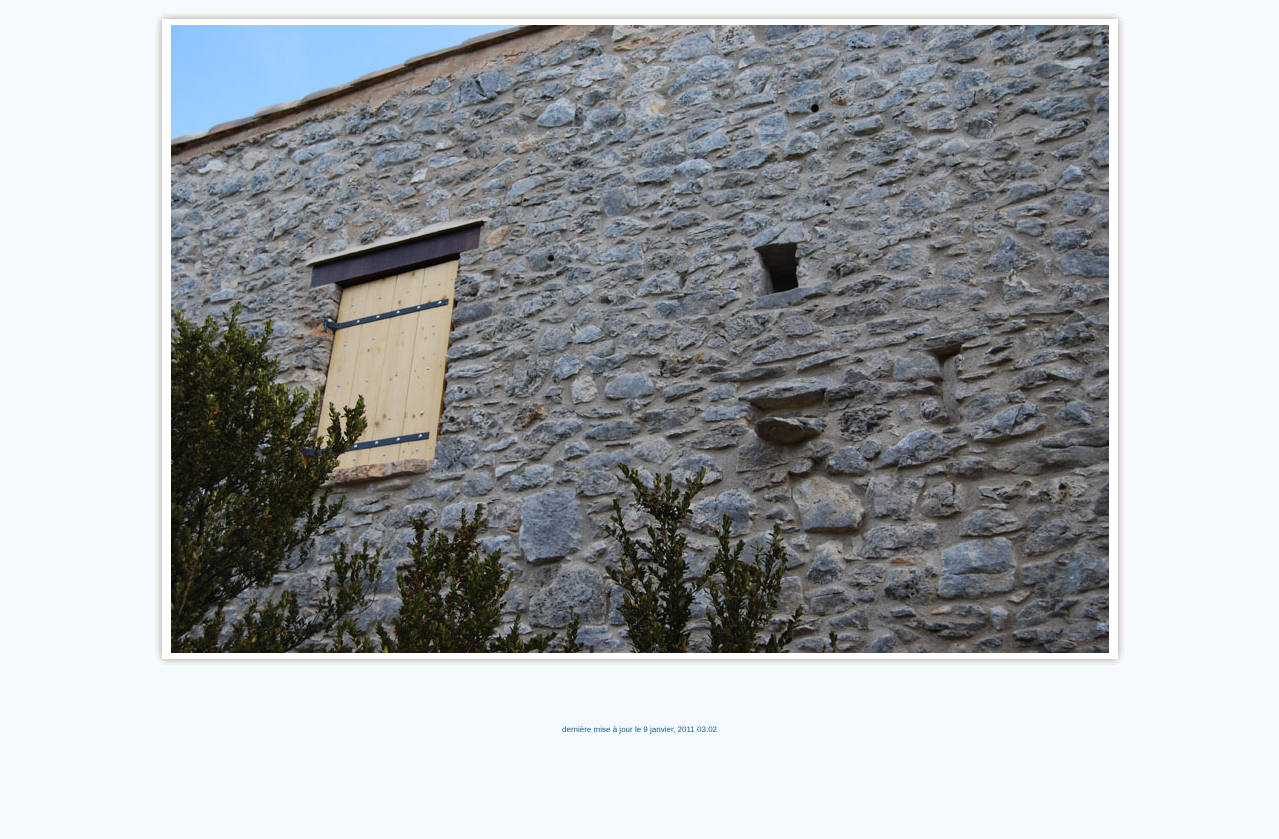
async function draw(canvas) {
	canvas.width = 1279;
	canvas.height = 839;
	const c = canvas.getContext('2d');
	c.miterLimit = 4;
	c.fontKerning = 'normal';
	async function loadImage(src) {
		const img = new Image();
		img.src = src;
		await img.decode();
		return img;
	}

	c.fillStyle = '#f4faff';
	c.fillRect(0, 0, 1279, 839);
	c.drawImage(await loadImage('img1.png'), 153, 11, 18, 14);
	c.drawImage(await loadImage('img2.png'), 171, 11, 938, 14);
	c.drawImage(await loadImage('img3.png'), 1109, 11, 18, 14);
	c.drawImage(await loadImage('img4.png'), 153, 25, 18, 628);
	c.drawImage(await loadImage('img5.png'), 171, 25, 938, 628);
	c.drawImage(await loadImage('img6.png'), 1109, 25, 18, 628);
	c.drawImage(await loadImage('img7.png'), 153, 653, 18, 14);
	c.drawImage(await loadImage('img8.png'), 171, 653, 938, 14);
	c.drawImage(await loadImage('img9.png'), 1109, 653, 18, 14);
	c.font = '8px Liberation Sans';
	c.fillStyle = '#1a588c';
	c.fillText('dernière mise à jour le 9 janvier, 2011 03:02', 562, 732);
}

draw(document.querySelector('canvas'));
